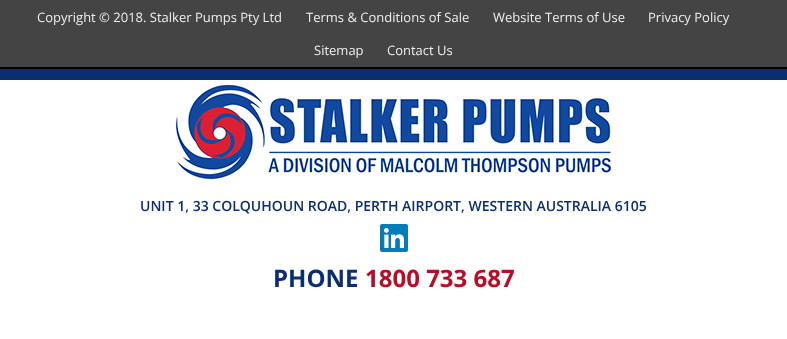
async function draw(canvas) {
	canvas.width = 787;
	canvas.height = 339;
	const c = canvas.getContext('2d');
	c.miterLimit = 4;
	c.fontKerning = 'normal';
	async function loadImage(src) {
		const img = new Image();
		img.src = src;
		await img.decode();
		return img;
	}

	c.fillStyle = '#fff';
	c.fillRect(0, 0, 787, 339);
	c.fillStyle = '#444';
	c.fillRect(0, 0, 787, 67);
	c.fillStyle = '#000';
	c.fillRect(0, 67, 787, 2);
	c.font = '13px Open Sans';
	c.fillStyle = '#eee';
	for (const [text, x, y] of [
		['Copyright © 2018. Stalker Pumps Pty Ltd', 37, 22],
		['Terms & Conditions of Sale', 306, 22],
		['Website Terms of Use', 493, 22],
		['Privacy Policy', 648, 22],
		['Sitemap', 314, 55],
		['Contact Us', 387, 55],
	]) {
		c.fillText(text, x, y);
	}
	c.fillStyle = '#0b2d73';
	c.fillRect(0, 69, 787, 11);
	c.drawImage(await loadImage('img1.png'), 176, 85, 435, 95);
	c.font = '600 14px Open Sans';
	c.fillText('UNIT 1, 33 COLQUHOUN ROAD, PERTH AIRPORT, WESTERN AUSTRALIA 6105', 140, 211);
	c.drawImage(await loadImage('img2.png'), 380, 224, 28, 28);
	c.font = 'bold 24px Open Sans';
	c.fillText('PHONE', 273, 287);
	c.fillStyle = '#b80d27';
	c.fillText('1800 733 687', 365, 287);
}

draw(document.querySelector('canvas'));
